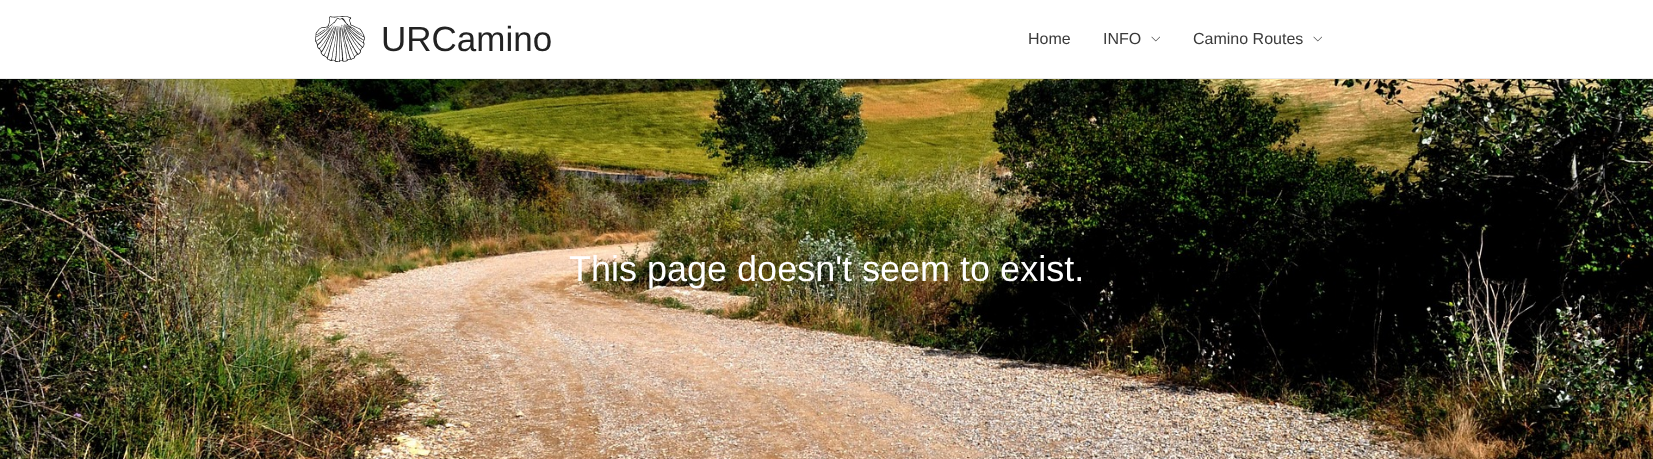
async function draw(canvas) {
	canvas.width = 1653;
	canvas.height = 459;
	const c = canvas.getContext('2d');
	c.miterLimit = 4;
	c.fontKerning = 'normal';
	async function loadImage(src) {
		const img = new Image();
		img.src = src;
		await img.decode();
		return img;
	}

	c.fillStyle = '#fff';
	c.fillRect(0, 0, 1653, 459);
	c.fillStyle = '#eaeaea';
	c.fillRect(0, 78, 1653, 1);
	c.drawImage(await loadImage('img1.png'), 315, 16, 50, 46);
	c.font = '35px Liberation Sans';
	c.fillStyle = '#222';
	c.fillText('URCamino', 381, 51);
	c.font = '16px Liberation Sans';
	c.fillStyle = '#3a3a3a';
	c.fillText('Home', 1028, 44);
	c.fillText('INFO', 1103, 44);
	c.drawImage(await loadImage('img2.png'), 1151, 36, 9, 6);
	c.fillText('Camino Routes', 1193, 44);
	c.drawImage(await loadImage('img2.png'), 1313, 36, 9, 6);
	c.drawImage(await loadImage('img3.png'), 0, 79, 1653, 380);
	c.font = '36px Liberation Sans';
	c.fillStyle = '#fff';
	c.fillText('This page doesn\'t seem to exist.', 569, 281);
}

draw(document.querySelector('canvas'));
